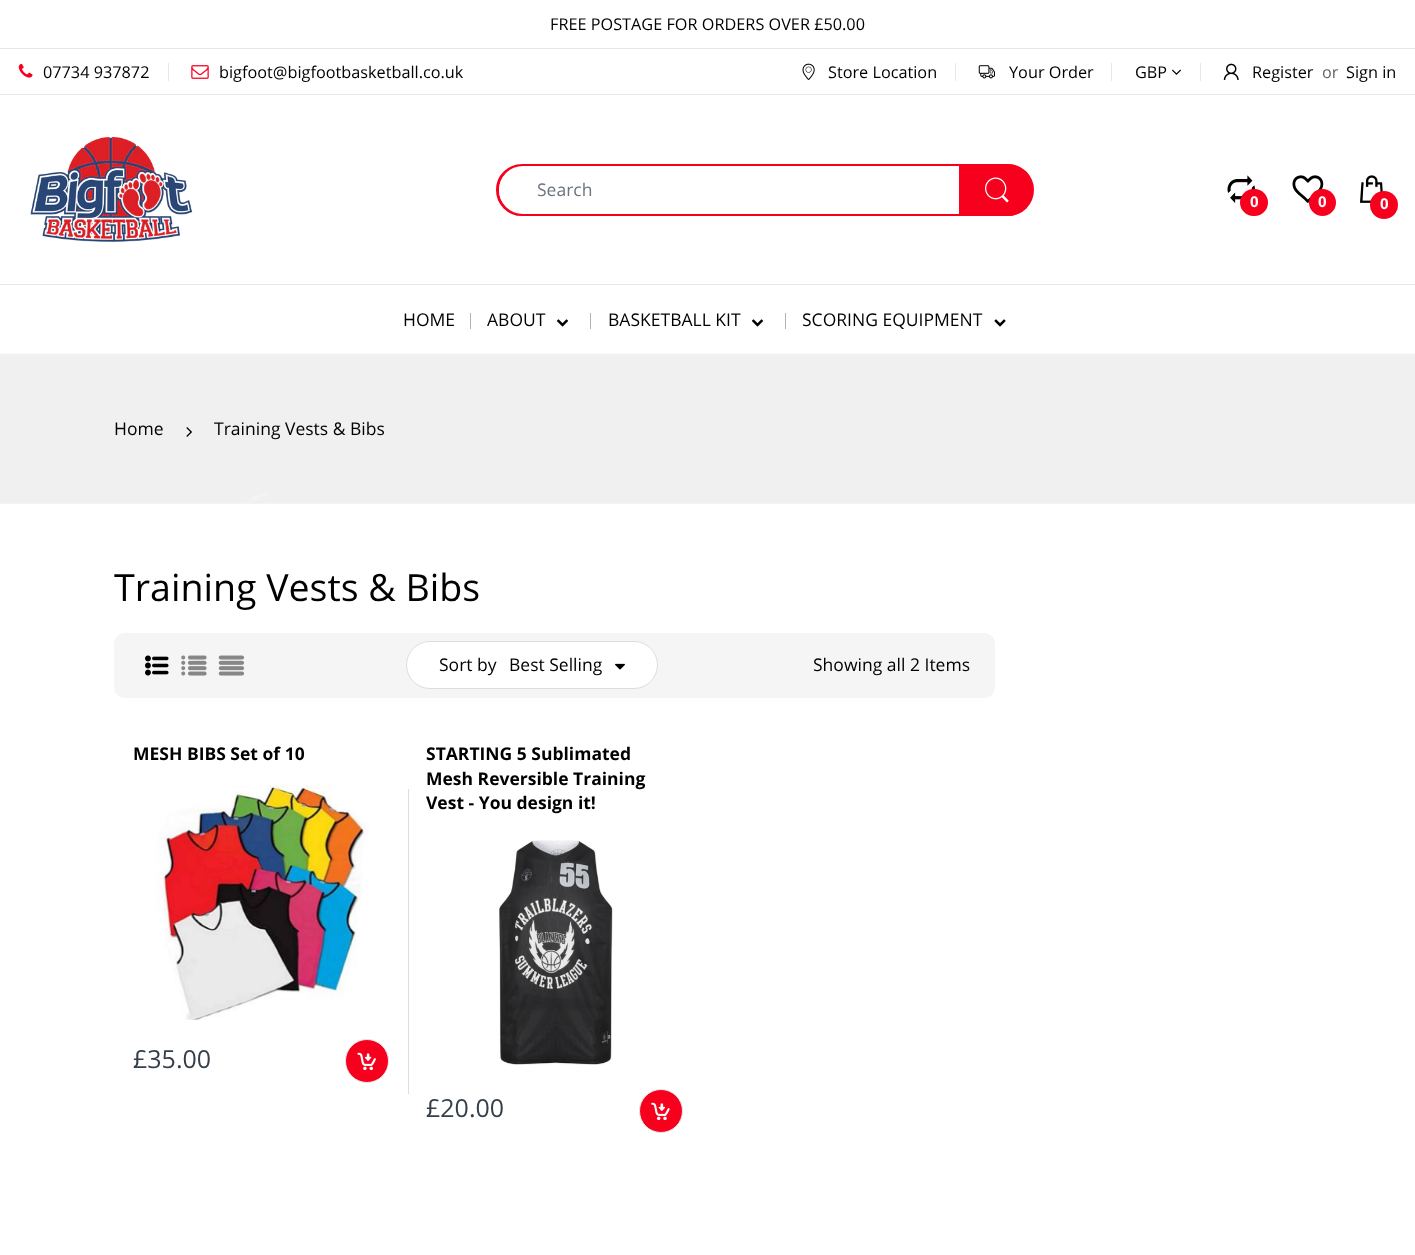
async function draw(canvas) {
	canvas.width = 1415;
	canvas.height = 1255;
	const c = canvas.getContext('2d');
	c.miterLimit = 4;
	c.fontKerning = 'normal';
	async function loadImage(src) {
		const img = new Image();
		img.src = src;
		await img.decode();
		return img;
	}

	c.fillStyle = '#fff';
	c.fillRect(0, 0, 1415, 1255);
	c.fillStyle = '#e6e6e6';
	c.fillRect(0, 48, 1415, 1);
	c.font = '16.25px Open Sans';
	c.fillStyle = '#000';
	c.fillText('FREE POSTAGE FOR ORDERS OVER £50.00', 550, 30);
	c.fillStyle = '#e6e6e6';
	c.fillRect(0, 94, 1415, 1);
	c.drawImage(await loadImage('img1.png'), 18, 63, 15, 15);
	c.fillStyle = '#000';
	c.fillText('07734 937872', 43, 78);
	c.fillStyle = '#e6e6e6';
	c.fillRect(168, 63, 1, 18);
	c.drawImage(await loadImage('img2.png'), 191, 65, 18, 14);
	c.fillStyle = '#000';
	c.fillText('bigfoot@bigfootbasketball.co.uk', 219, 78);
	c.drawImage(await loadImage('img3.png'), 802, 63, 13, 17);
	c.fillText('Store Location', 828, 78);
	c.fillStyle = '#e6e6e6';
	c.fillRect(955, 63, 1, 18);
	c.drawImage(await loadImage('img4.png'), 978, 65, 17, 14);
	c.fillStyle = '#000';
	c.fillText('Your Order', 1009, 78);
	c.fillStyle = '#e6e6e6';
	c.fillRect(1111, 63, 1, 18);
	c.fillStyle = '#000';
	c.fillText('GBP', 1135, 78);
	c.drawImage(await loadImage('img5.png'), 1172, 69, 9, 6);
	c.fillStyle = '#e6e6e6';
	c.fillRect(1200, 63, 1, 18);
	c.drawImage(await loadImage('img6.png'), 1223, 63, 16, 17);
	c.fillStyle = '#000';
	c.fillText('Register', 1252, 78);
	c.fillStyle = '#666';
	c.fillText('or', 1322, 78);
	c.fillStyle = '#000';
	c.fillText('Sign in', 1346, 78);
	c.fillStyle = '#e6e6e6';
	c.fillRect(0, 284, 1415, 1);
	c.drawImage(await loadImage('img7.png'), 30, 137, 163, 105);
	c.beginPath();
	c.roundRect(497.5, 165.5, 534, 49, 24.5);
	c.strokeStyle = '#f7001d';
	c.lineWidth = 3;
	c.stroke();
	c.fillStyle = '#fff';
	c.beginPath();
	c.roundRect(499, 166, 531, 48, 24);
	c.fill();
	c.font = '17.5px Open Sans';
	c.fillStyle = '#6c757d';
	c.fillText('Search', 537, 196);
	c.fillStyle = '#f7001d';
	c.beginPath();
	c.roundRect(959, 164, 75, 52, [0, 26, 26, 0]);
	c.fill();
	c.drawImage(await loadImage('img8.png'), 985, 177, 24, 26);
	c.drawImage(await loadImage('img9.png'), 1227, 175, 28, 28);
	c.beginPath();
	c.roundRect(1240, 189, 28, 27, 13.5);
	c.fill();
	c.font = 'bold 15px Open Sans';
	c.fillStyle = '#fdfeff';
	c.fillText('0', 1250, 207);
	c.drawImage(await loadImage('img10.png'), 1292, 175, 32, 28);
	c.fillStyle = '#f7001d';
	c.beginPath();
	c.arc(1322.5, 202.5, 13.5, 0, 2 * Math.PI);
	c.fill();
	c.fillStyle = '#fdfeff';
	c.fillText('0', 1318, 207);
	c.drawImage(await loadImage('img11.png'), 1360, 175, 23, 28);
	c.fillStyle = '#f7001d';
	c.beginPath();
	c.arc(1384, 205, 14, 0, 2 * Math.PI);
	c.fill();
	c.fillStyle = '#fdfeff';
	c.fillText('0', 1380, 209);
	c.font = '17.5px Open Sans';
	c.fillStyle = '#000';
	c.fillText('HOME', 403, 326);
	c.fillStyle = '#b3b3b3';
	c.fillRect(470, 313, 1, 16);
	c.fillStyle = '#000';
	c.fillText('ABOUT', 487, 326);
	c.drawImage(await loadImage('img12.png'), 556, 319, 13, 8);
	c.fillStyle = '#b3b3b3';
	c.fillRect(590, 313, 1, 16);
	c.fillStyle = '#000';
	c.fillText('BASKETBALL KIT', 608, 326);
	c.drawImage(await loadImage('img12.png'), 751, 319, 13, 8);
	c.fillStyle = '#b3b3b3';
	c.fillRect(785, 313, 1, 16);
	c.fillStyle = '#000';
	c.fillText('SCORING EQUIPMENT', 802, 326);
	c.drawImage(await loadImage('img13.png'), 994, 319, 12, 8);
	c.drawImage(await loadImage('img14.png'), 0, 353, 1415, 151);
	c.fillText('Home', 114, 435);
	c.drawImage(await loadImage('img15.png'), 186, 427, 6, 10);
	c.fillText('Training Vests & Bibs', 214, 435);
	c.font = '37.5px Open Sans';
	c.fillText('Training Vests & Bibs', 114, 601);
	c.fillStyle = '#f5f5f5';
	c.beginPath();
	c.roundRect(114, 633, 881, 65, 11);
	c.fill();
	c.drawImage(await loadImage('img16.png'), 145, 655, 24, 21);
	c.drawImage(await loadImage('img17.png'), 181, 655, 26, 21);
	c.drawImage(await loadImage('img18.png'), 218, 655, 27, 21);
	c.fillStyle = '#fff';
	c.beginPath();
	c.roundRect(406.5, 641.5, 251, 47, 23.5);
	c.fill();
	c.strokeStyle = '#ddd';
	c.lineWidth = 1;
	c.stroke();
	c.font = '17.5px Open Sans';
	c.fillStyle = '#000';
	c.fillText('Sort by', 439, 671);
	c.fillText('Best Selling', 509, 671);
	c.drawImage(await loadImage('img19.png'), 615, 663, 10, 7);
	c.fillText('Showing all 2 Items', 813, 671);
	c.font = 'bold 17.5px Open Sans';
	c.fillText('MESH BIBS Set of 10', 133, 760);
	c.drawImage(await loadImage('img20.png'), 156, 785, 214, 235);
	c.font = '25px Open Sans';
	c.fillStyle = '#343f49';
	c.fillText('£35.00', 133, 1068);
	c.fillStyle = '#f7001d';
	c.beginPath();
	c.arc(367, 1061, 21.5, 0, 2 * Math.PI);
	c.fill();
	c.strokeStyle = '#e6e6e6';
	c.stroke();
	c.drawImage(await loadImage('img21.png'), 357, 1052, 19, 19);
	c.font = 'bold 17.5px Open Sans';
	c.fillStyle = '#000';
	for (const [text, x, y] of [
		['STARTING 5 Sublimated', 426, 760],
		['Mesh Reversible Training', 426, 785],
		['Vest - You design it!', 426, 809],
	]) {
		c.fillText(text, x, y);
	}
	c.drawImage(await loadImage('img22.png'), 499, 840, 114, 225);
	c.fillStyle = '#ddd';
	c.fillRect(408, 789, 1, 305);
	c.font = '25px Open Sans';
	c.fillStyle = '#343f49';
	c.fillText('£20.00', 426, 1117);
	c.fillStyle = '#f7001d';
	c.beginPath();
	c.arc(661, 1111, 21.5, 0, 2 * Math.PI);
	c.fill();
	c.stroke();
	c.drawImage(await loadImage('img23.png'), 651, 1102, 19, 19);
}

draw(document.querySelector('canvas'));
